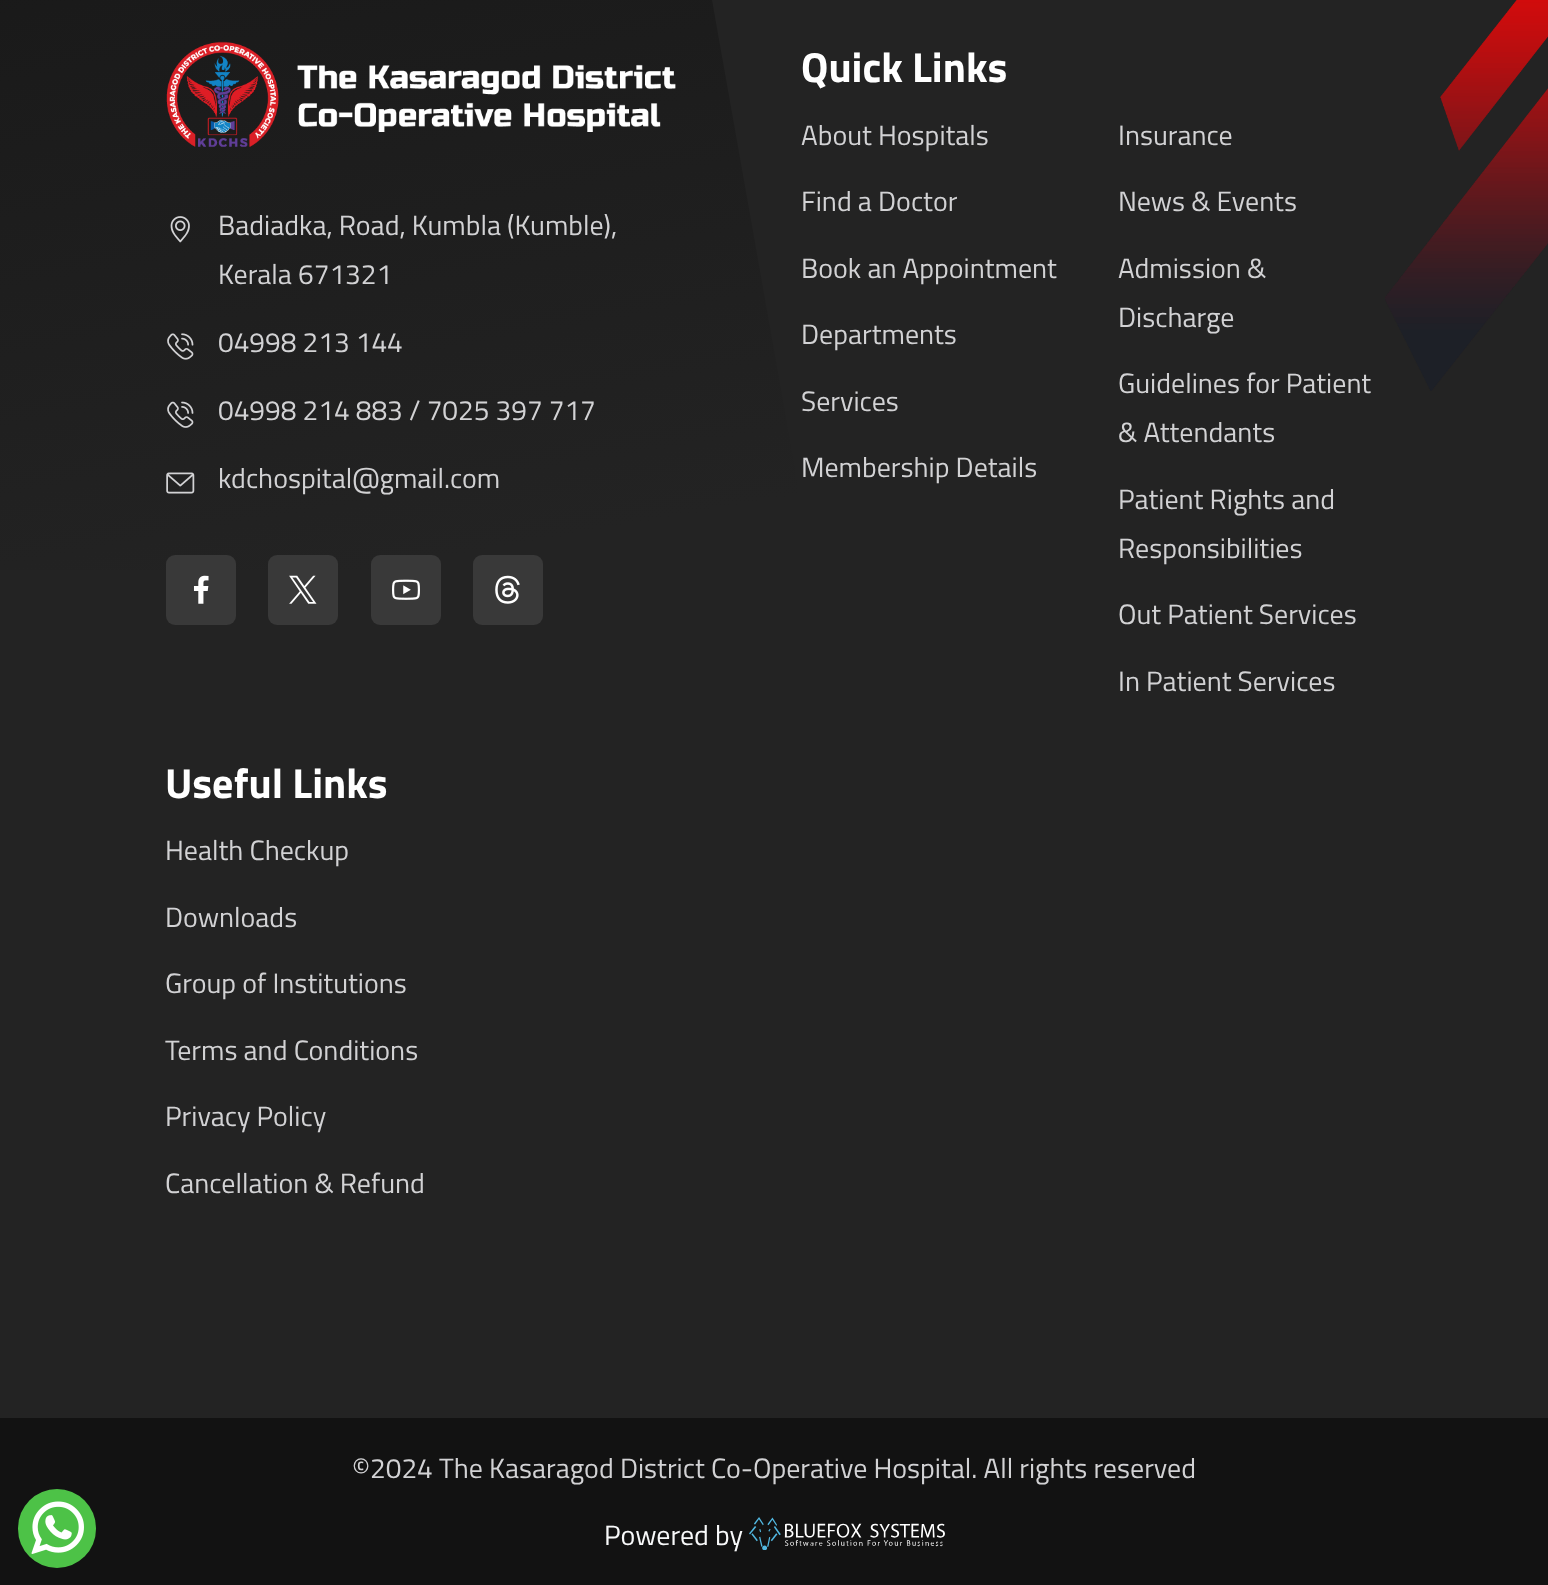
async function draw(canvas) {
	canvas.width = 1548;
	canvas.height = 1585;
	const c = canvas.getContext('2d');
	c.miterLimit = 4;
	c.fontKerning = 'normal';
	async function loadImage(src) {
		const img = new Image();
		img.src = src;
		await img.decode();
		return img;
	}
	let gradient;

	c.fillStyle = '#232323';
	c.fillRect(0, 0, 1548, 1585);
	c.fillStyle = '#121212';
	c.fillRect(0, 1418, 1548, 167);
	c.fillStyle = '#4dc247';
	c.beginPath();
	c.roundRect(18, 1489, 78, 79, 39);
	c.fill();
	c.drawImage(await loadImage('img1.png'), 31, 1501, 53, 53);
	gradient = c.createLinearGradient(375, 570, 175, -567);
	gradient.addColorStop(0, '#232323');
	gradient.addColorStop(1, '#121212');
	c.fillStyle = gradient;
	c.beginPath();
	c.moveTo(-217, -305);
	c.lineTo(658, -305);
	c.lineTo(813, 570);
	c.lineTo(-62, 570);
	c.closePath();
	c.fill();
	c.drawImage(await loadImage('img2.png'), 1385, 0, 163, 391);
	c.drawImage(await loadImage('img3.png'), 166, 41, 510, 106);
	c.drawImage(await loadImage('img4.png'), 170, 216, 20, 27);
	c.font = '28px Titillium Web';
	c.fillStyle = '#d2d2d4';
	c.fillText('Badiadka, Road, Kumbla (Kumble),', 218, 235);
	c.fillText('Kerala 671321', 218, 284);
	c.drawImage(await loadImage('img5.png'), 167, 333, 27, 27);
	c.fillText('04998 213 144', 218, 352);
	c.drawImage(await loadImage('img6.png'), 167, 401, 27, 27);
	c.fillText('04998 214 883 / 7025 397 717', 218, 420);
	c.drawImage(await loadImage('img7.png'), 166, 472, 29, 22);
	c.fillText('kdchospital@gmail.com', 218, 488);
	c.fillStyle = '#393939';
	c.beginPath();
	c.roundRect(166, 555, 70, 70, 9);
	c.fill();
	c.drawImage(await loadImage('img8.png'), 193, 575, 16, 29);
	c.beginPath();
	c.roundRect(268, 555, 70, 70, 9);
	c.fill();
	c.drawImage(await loadImage('img9.png'), 289, 575, 28, 29);
	c.beginPath();
	c.roundRect(371, 555, 70, 70, 9);
	c.fill();
	c.drawImage(await loadImage('img10.png'), 392, 579, 28, 21);
	c.beginPath();
	c.roundRect(473, 555, 70, 70, 9);
	c.fill();
	c.drawImage(await loadImage('img11.png'), 495, 575, 25, 29);
	c.font = 'bold 42px Titillium Web';
	c.fillStyle = '#fff';
	c.fillText('Quick Links', 801, 82);
	c.font = '28px Titillium Web';
	c.fillStyle = '#d2d2d4';
	for (const [text, x, y] of [
		['About Hospitals', 801, 145],
		['Find a Doctor', 801, 211],
		['Book an Appointment', 801, 278],
		['Departments', 801, 344],
		['Services', 801, 411],
		['Membership Details', 801, 477],
		['Insurance', 1118, 145],
		['News & Events', 1118, 211],
		['Admission &', 1118, 278],
		['Discharge', 1118, 327],
		['Guidelines for Patient', 1118, 393],
		['& Attendants', 1118, 442],
		['Patient Rights and', 1118, 509],
		['Responsibilities', 1118, 558],
		['Out Patient Services', 1118, 624],
		['In Patient Services', 1118, 691],
	]) {
		c.fillText(text, x, y);
	}
	c.font = 'bold 42px Titillium Web';
	c.fillStyle = '#fff';
	c.fillText('Useful Links', 165, 798);
	c.font = '28px Titillium Web';
	c.fillStyle = '#d2d2d4';
	for (const [text, x, y] of [
		['Health Checkup', 165, 860],
		['Downloads', 165, 927],
		['Group of Institutions', 165, 993],
		['Terms and Conditions', 165, 1060],
		['Privacy Policy', 165, 1126],
		['Cancellation & Refund', 165, 1193],
		['©2024 The Kasaragod District Co-Operative Hospital. All rights reserved', 352, 1478],
	]) {
		c.fillText(text, x, y);
	}
	c.fillStyle = '#f8f9fa';
	c.fillText('Powered by', 604, 1545);
	c.drawImage(await loadImage('img12.png'), 749, 1517, 196, 33);
}

draw(document.querySelector('canvas'));
